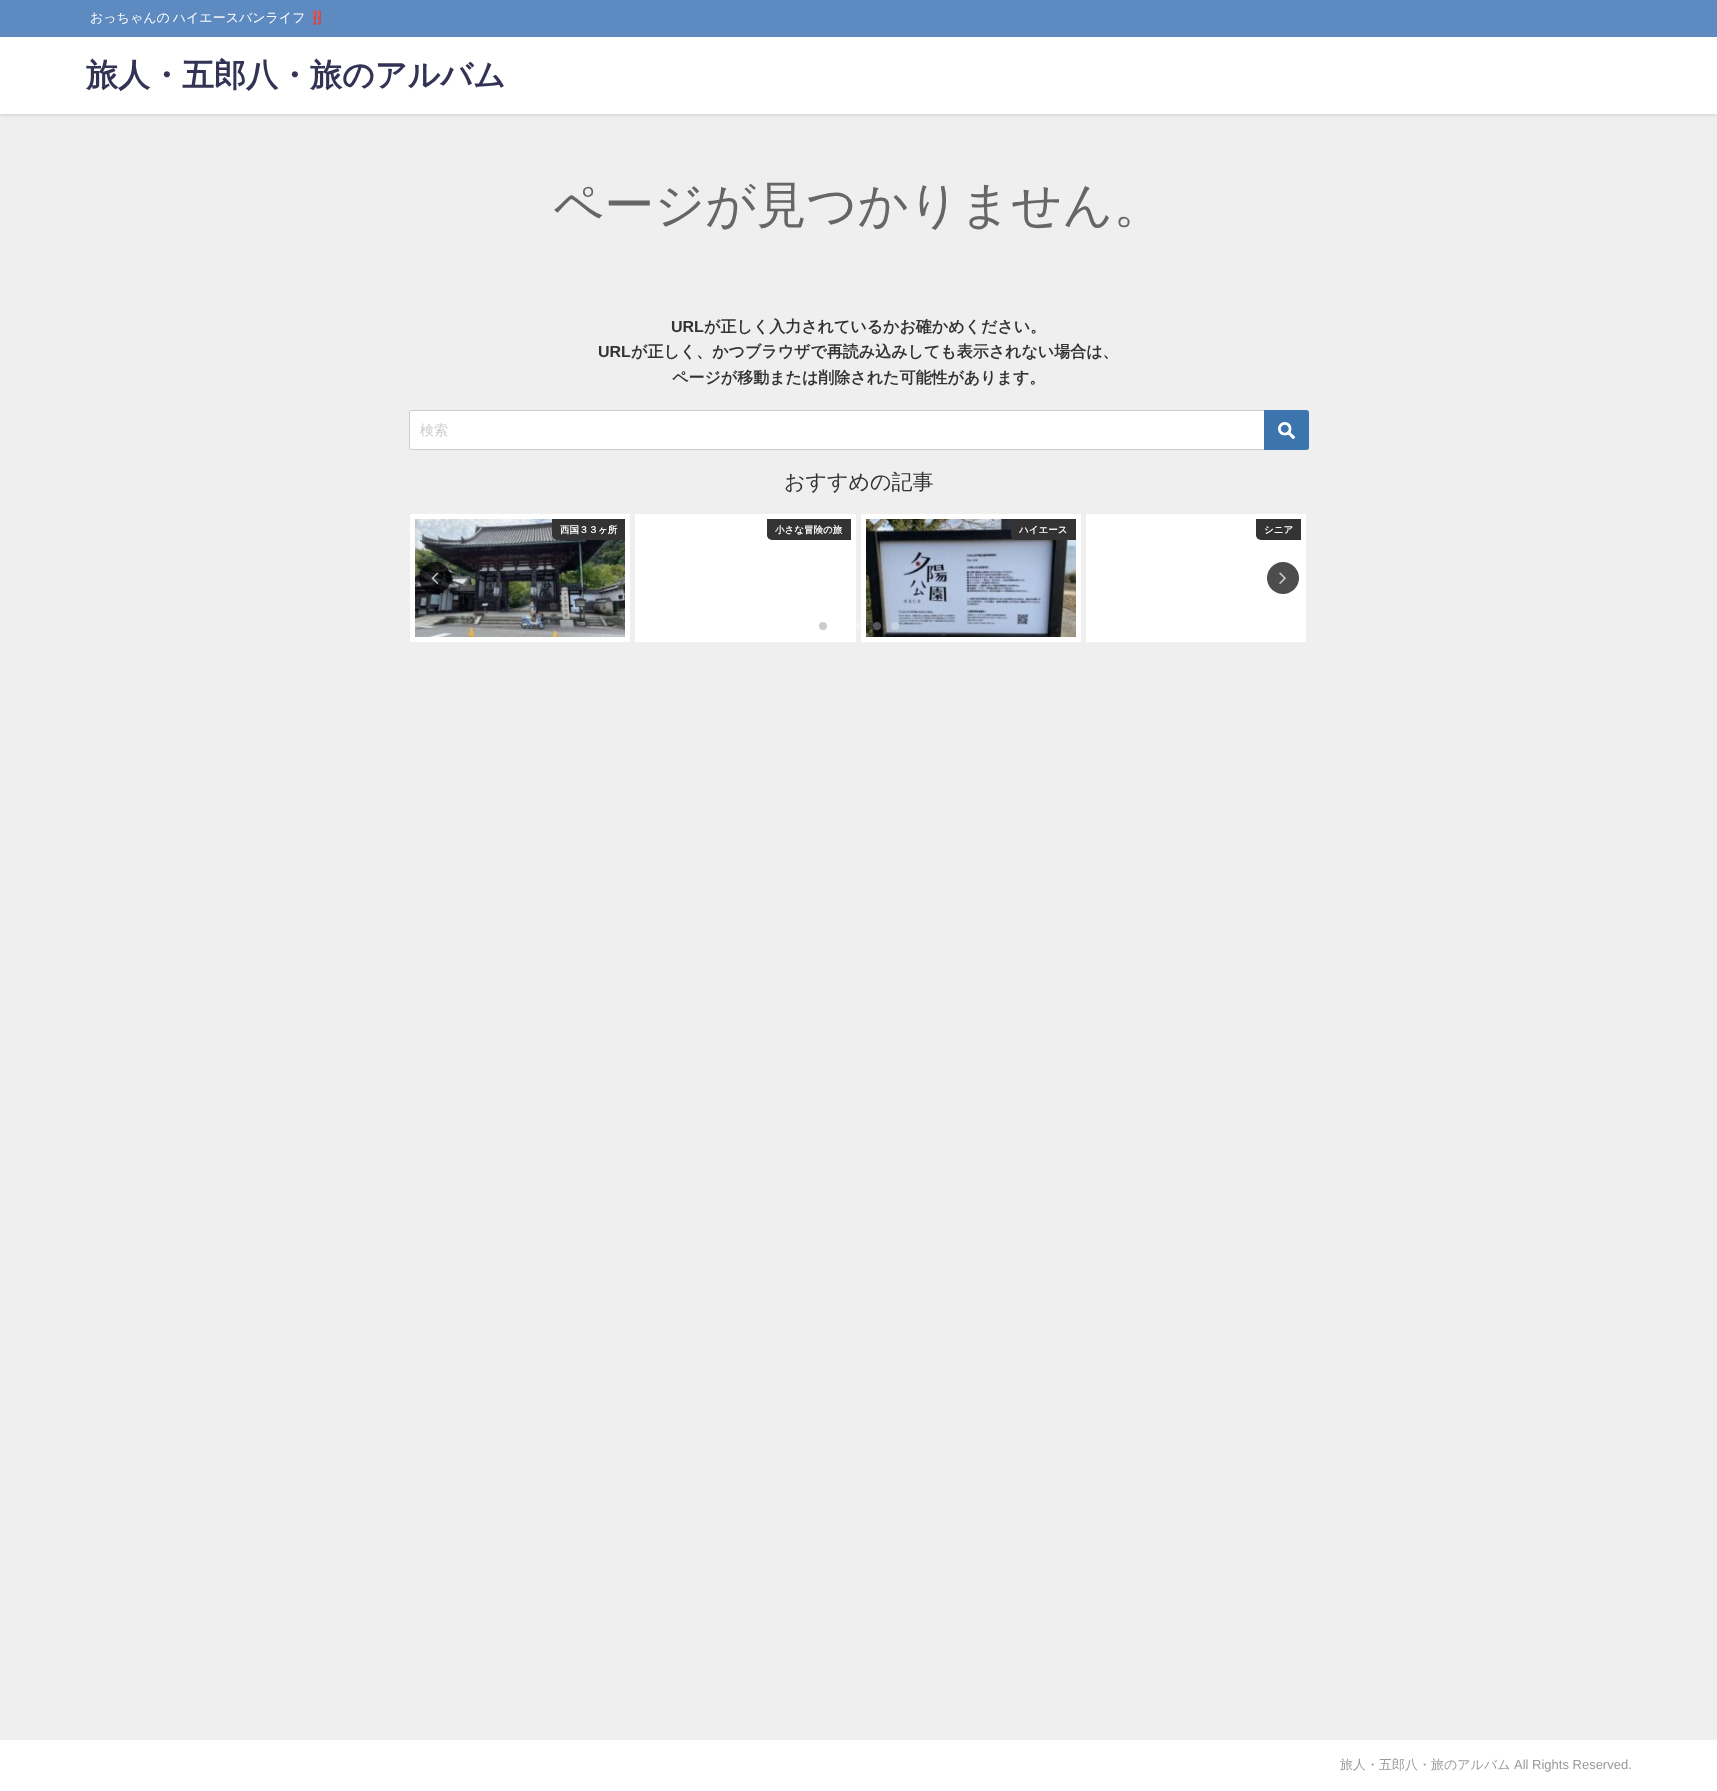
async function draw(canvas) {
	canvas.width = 1717;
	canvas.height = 1791;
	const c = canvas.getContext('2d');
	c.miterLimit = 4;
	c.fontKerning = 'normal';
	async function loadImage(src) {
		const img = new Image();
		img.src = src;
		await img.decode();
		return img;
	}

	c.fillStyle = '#efefef';
	c.fillRect(0, 0, 1717, 1791);
	c.fillStyle = '#00000033';
	c.filter = 'blur(2px)';
	c.beginPath();
	c.rect(0, 0, 1717, 114);
	c.fill();
	c.filter = 'none';
	c.fillStyle = '#fff';
	c.fillRect(0, 37, 1717, 77);
	c.fillStyle = '#5d8ac1';
	c.fillRect(0, 0, 1717, 37);
	c.wordSpacing = '-1px';
	c.font = '500 13px WenQuanYi Zen Hei';
	c.fillStyle = '#fff';
	c.fillText('おっちゃんの ハイエースバンライフ', 90, 22);
	c.wordSpacing = '0px';
	c.font = '13px Noto Color Emoji';
	c.fillText('‼️', 309, 22);
	c.font = 'bold 32px WenQuanYi Zen Hei';
	c.fillStyle = '#335';
	c.fillText('旅人・五郎八・旅のアルバム', 86, 86);
	c.font = '500 50px WenQuanYi Zen Hei';
	c.fillStyle = '#666';
	c.fillText('ページが見つかりません。', 553, 222);
	c.font = 'bold 16px Liberation Sans';
	c.fillStyle = '#333';
	c.fillText('URL', 671, 332);
	c.font = 'bold 16px WenQuanYi Zen Hei';
	c.fillText('が正しく入力されているかお確かめください。', 704, 332);
	c.font = 'bold 16px Liberation Sans';
	c.fillText('URL', 598, 357);
	c.font = 'bold 16px WenQuanYi Zen Hei';
	c.fillText('が正しく、かつブラウザで再読み込みしても表示されない場合は、', 631, 357);
	c.fillText('ページが移動または削除された可能性があります。', 672, 383);
	c.fillStyle = '#fff';
	c.beginPath();
	c.roundRect(409.5, 410.5, 899, 39, 1.5);
	c.fill();
	c.strokeStyle = '#ccc';
	c.stroke();
	c.font = '500 14px WenQuanYi Zen Hei';
	c.fillStyle = '#ccc';
	c.fillText('検索', 420, 435);
	c.fillStyle = '#3c74ad';
	c.beginPath();
	c.roundRect(1264, 410, 45, 40, [0, 3, 3, 0]);
	c.fill();
	c.drawImage(await loadImage('img1.png'), 1278, 422, 17, 17);
	c.font = '500 21px WenQuanYi Zen Hei';
	c.fillStyle = '#333';
	c.fillText('おすすめの記事', 784, 489);
	c.fillStyle = '#fff';
	c.fillRect(410, 514, 220, 128);
	c.drawImage(await loadImage('img2.png'), 415, 519, 210, 118);
	c.fillStyle = '#333';
	c.beginPath();
	c.roundRect(552, 519, 73, 21, [0, 0, 0, 5]);
	c.fill();
	c.font = 'bold 9.5px WenQuanYi Zen Hei';
	c.fillStyle = '#fff';
	c.fillText('西国３３ヶ所', 560, 533);
	c.fillRect(635, 514, 221, 128);
	c.fillStyle = '#333';
	c.beginPath();
	c.roundRect(767, 519, 84, 21, [0, 0, 0, 5]);
	c.fill();
	c.fillStyle = '#fff';
	c.fillText('小さな冒険の旅', 775, 533);
	c.fillRect(861, 514, 220, 128);
	c.drawImage(await loadImage('img3.png'), 866, 519, 210, 118);
	c.fillStyle = '#333';
	c.beginPath();
	c.roundRect(1011, 519, 65, 21, [0, 0, 0, 5]);
	c.fill();
	c.fillStyle = '#fff';
	c.fillText('ハイエース', 1019, 533);
	c.fillRect(1086, 514, 220, 128);
	c.fillStyle = '#333';
	c.beginPath();
	c.roundRect(1256, 519, 45, 21, [0, 0, 0, 5]);
	c.fill();
	c.fillStyle = '#fff';
	c.fillText('シニア', 1264, 533);
	c.fillStyle = '#000000b3';
	c.beginPath();
	c.arc(435, 578, 16, 0, 2 * Math.PI);
	c.fill();
	c.drawImage(await loadImage('img4.png'), 431, 572, 8, 12);
	c.fillStyle = '#4d4d4d';
	c.beginPath();
	c.arc(1283, 578, 16, 0, 2 * Math.PI);
	c.fill();
	c.drawImage(await loadImage('img5.png'), 1279, 572, 7, 12);
	c.fillStyle = '#ccc';
	c.beginPath();
	c.arc(823, 626, 4, 0, 2 * Math.PI);
	c.fill();
	c.fillStyle = '#ffffff4d';
	c.beginPath();
	c.arc(859, 626, 4, 0, 2 * Math.PI);
	c.fill();
	c.beginPath();
	c.arc(877, 626, 4, 0, 2 * Math.PI);
	c.fill();
	c.beginPath();
	c.arc(895, 626, 4, 0, 2 * Math.PI);
	c.fill();
	c.fillStyle = '#fff';
	c.fillRect(0, 1740, 1717, 51);
	c.font = '500 13px WenQuanYi Zen Hei';
	c.fillStyle = '#999';
	c.fillText('旅人・五郎八・旅のアルバム', 1340, 1769);
	c.font = '13px Liberation Sans';
	c.fillText('All Rights Reserved.', 1514, 1769);
}

draw(document.querySelector('canvas'));
